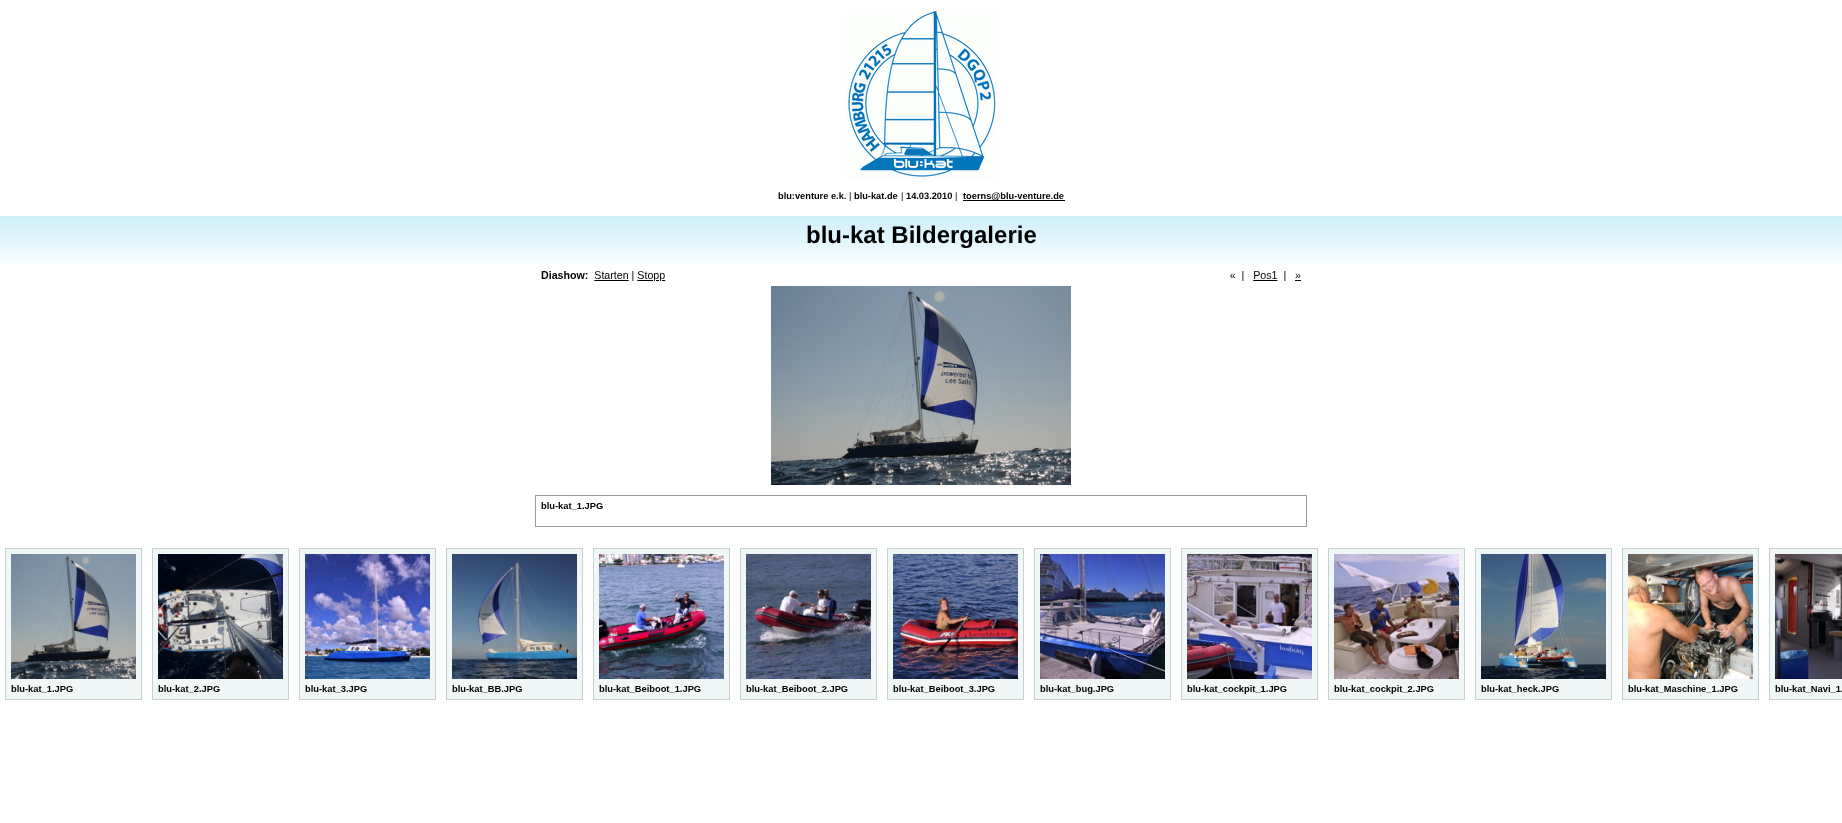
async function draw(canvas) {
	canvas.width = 1842;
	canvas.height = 823;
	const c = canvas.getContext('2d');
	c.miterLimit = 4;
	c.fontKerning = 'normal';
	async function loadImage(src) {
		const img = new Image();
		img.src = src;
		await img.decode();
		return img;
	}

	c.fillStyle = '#fff';
	c.fillRect(0, 0, 1842, 823);
	c.drawImage(await loadImage('img1.png'), 846, 10, 152, 169);
	c.font = 'bold 9.25px Liberation Sans';
	c.fillStyle = '#000';
	c.fillText('blu:venture e.k.', 778, 199);
	c.font = '9.25px Liberation Sans';
	c.fillText('|', 849, 199);
	c.font = 'bold 9.25px Liberation Sans';
	c.fillText('blu-kat.de', 854, 199);
	c.font = '9.25px Liberation Sans';
	c.fillText('|', 901, 199);
	c.font = 'bold 9.25px Liberation Sans';
	c.fillText('14.03.2010', 906, 199);
	c.font = '9.25px Liberation Sans';
	c.fillText('|', 955, 199);
	c.fillRect(963, 200, 102, 1);
	c.font = 'bold 9.25px Liberation Sans';
	c.fillText('toerns@blu-venture.de', 963, 199);
	c.drawImage(await loadImage('img2.png'), 0, 216, 1842, 48);
	c.font = 'bold 24px Liberation Sans';
	c.fillText('blu-kat Bildergalerie', 806, 243);
	c.drawImage(await loadImage('img3.png'), 0, 264, 1842, 263);
	c.drawImage(await loadImage('img4.png'), 5, 548, 1837, 152);
}

draw(document.querySelector('canvas'));
